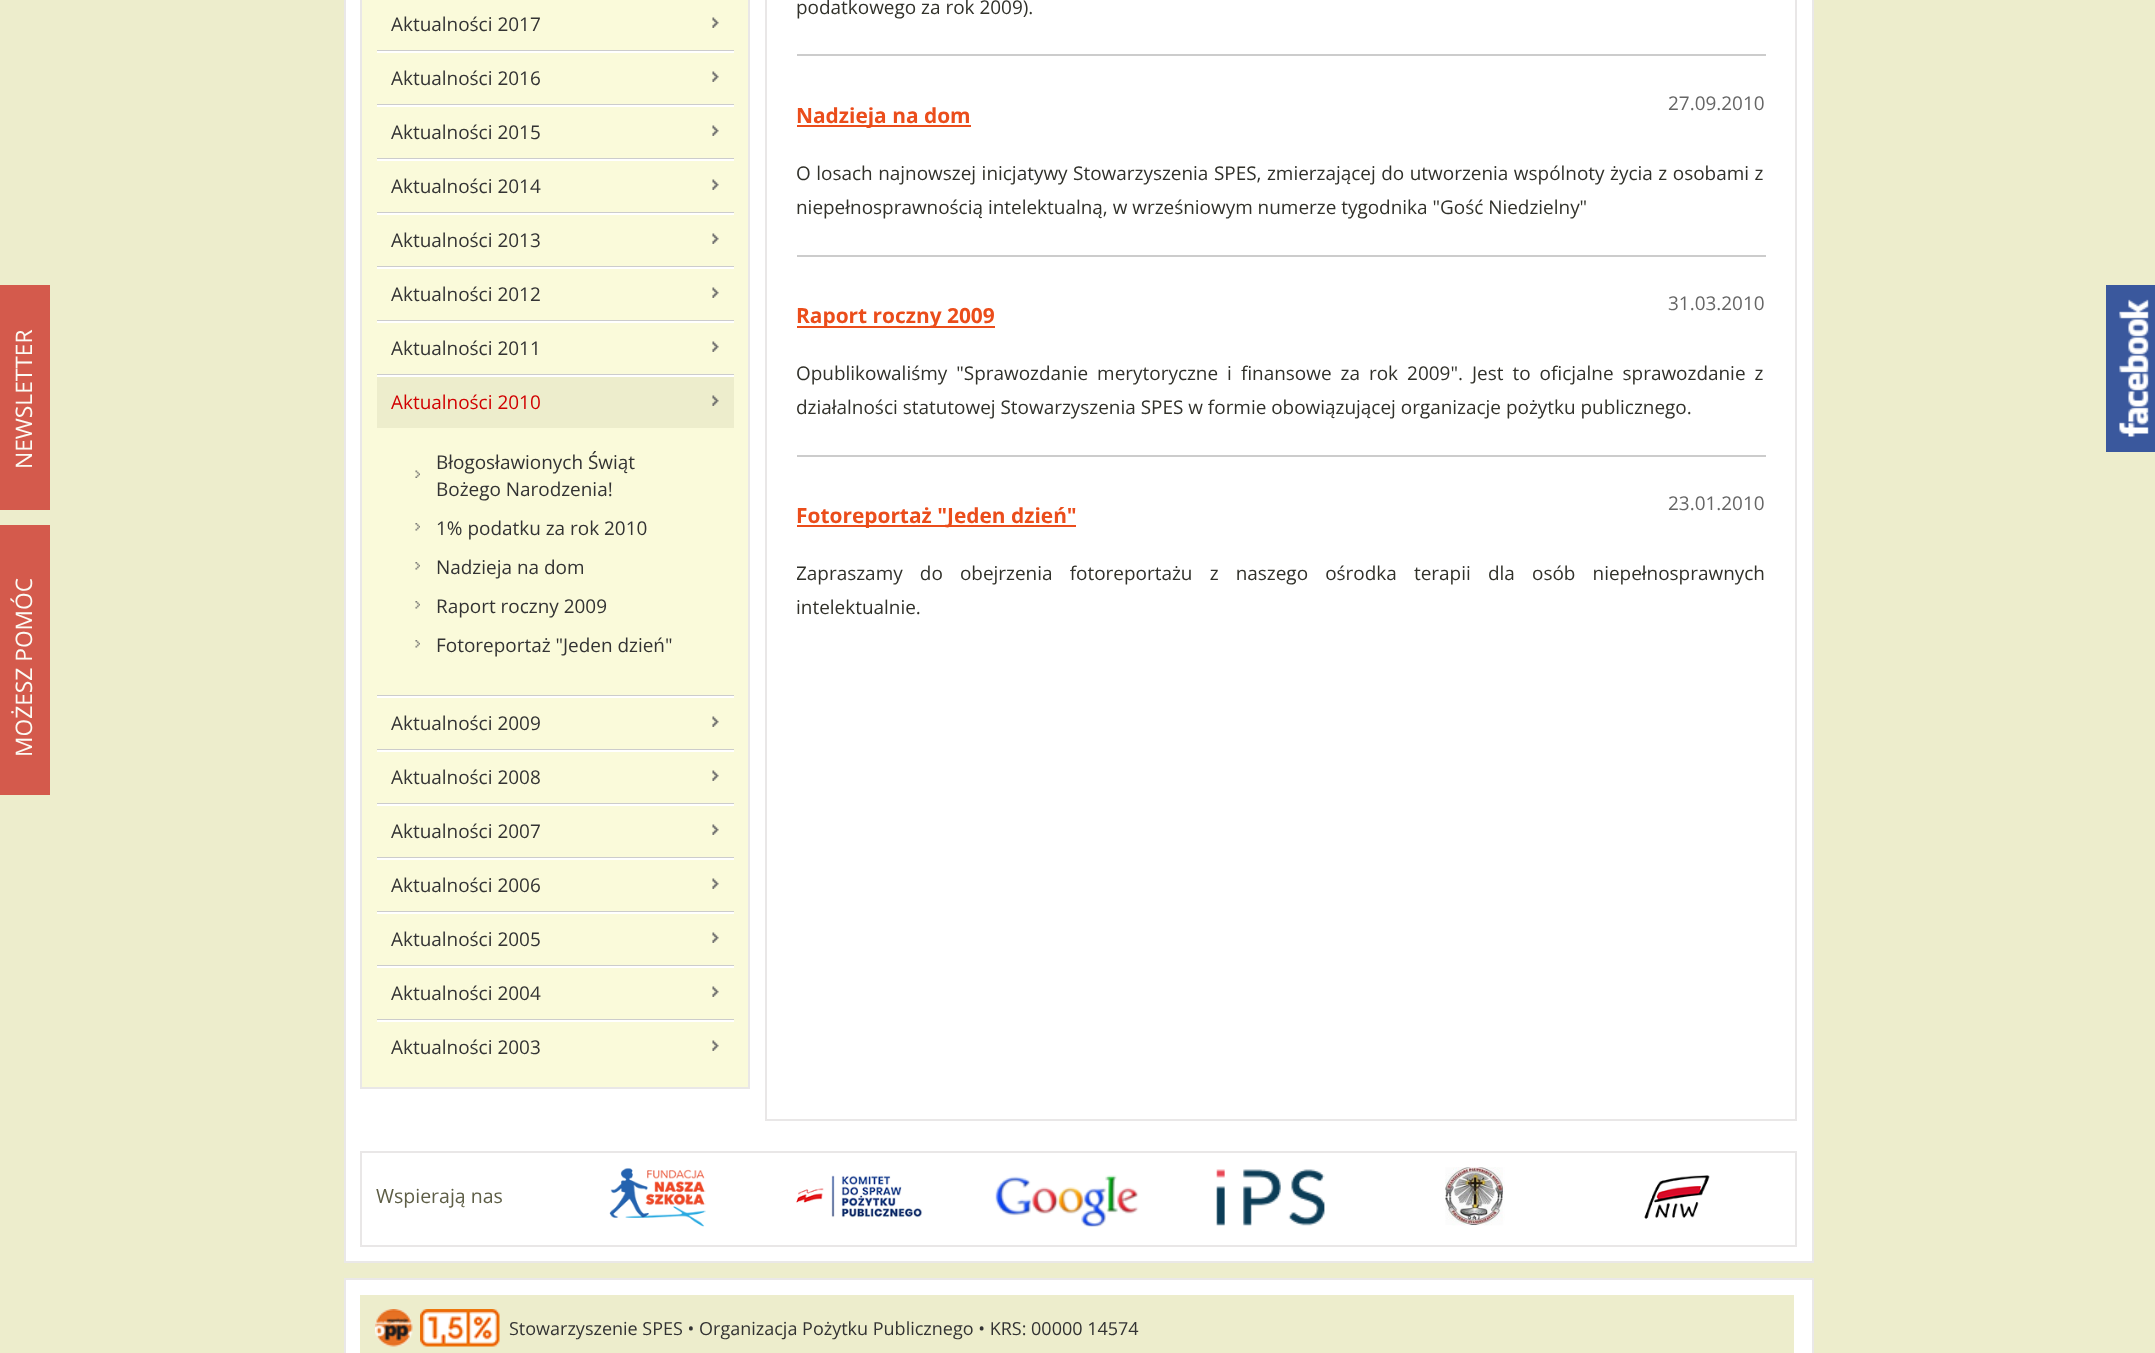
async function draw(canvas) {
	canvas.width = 2155;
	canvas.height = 1353;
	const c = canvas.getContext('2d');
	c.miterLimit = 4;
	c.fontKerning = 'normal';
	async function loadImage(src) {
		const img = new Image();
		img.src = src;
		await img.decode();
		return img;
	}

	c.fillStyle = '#ededcc';
	c.fillRect(0, 0, 2155, 1353);
	c.fillStyle = '#d45a4c';
	c.fillRect(0, 285, 50, 225);
	c.font = '22.75px Open Sans';
	c.fillStyle = '#fbfbf5';
	c.save();
	c.translate(32, 469);
	c.rotate(-90 * Math.PI / 180);
	c.fillText('NEWSLETTER', 0, 0);
	c.restore();
	c.fillStyle = '#fff';
	c.beginPath();
	c.rect(345, -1, 1468, 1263);
	c.fill();
	c.strokeStyle = '#eae8e8';
	c.lineWidth = 2;
	c.stroke();
	c.fillStyle = '#fafada';
	c.beginPath();
	c.rect(361, -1, 388, 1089);
	c.fill();
	c.strokeStyle = '#e9e7e7';
	c.stroke();
	c.fillStyle = '#ccc';
	c.fillRect(377, 50, 357, 1);
	c.drawImage(await loadImage('img1.png'), 712, 17, 7, 11);
	c.font = '18.95px Open Sans';
	c.fillStyle = '#333';
	c.fillText('Aktualności 2017', 391, 31);
	c.fillStyle = '#fff';
	c.fillRect(377, 51, 357, 2);
	c.fillStyle = '#ccc';
	c.fillRect(377, 104, 357, 1);
	c.drawImage(await loadImage('img1.png'), 712, 71, 7, 11);
	c.fillStyle = '#333';
	c.fillText('Aktualności 2016', 391, 85);
	c.fillStyle = '#fff';
	c.fillRect(377, 105, 357, 2);
	c.fillStyle = '#ccc';
	c.fillRect(377, 158, 357, 1);
	c.drawImage(await loadImage('img1.png'), 712, 125, 7, 11);
	c.fillStyle = '#333';
	c.fillText('Aktualności 2015', 391, 139);
	c.fillStyle = '#fff';
	c.fillRect(377, 159, 357, 2);
	c.fillStyle = '#ccc';
	c.fillRect(377, 212, 357, 1);
	c.drawImage(await loadImage('img1.png'), 712, 179, 7, 11);
	c.fillStyle = '#333';
	c.fillText('Aktualności 2014', 391, 193);
	c.fillStyle = '#fff';
	c.fillRect(377, 213, 357, 2);
	c.fillStyle = '#ccc';
	c.fillRect(377, 266, 357, 1);
	c.drawImage(await loadImage('img1.png'), 712, 233, 7, 11);
	c.fillStyle = '#333';
	c.fillText('Aktualności 2013', 391, 247);
	c.fillStyle = '#fff';
	c.fillRect(377, 267, 357, 2);
	c.fillStyle = '#ccc';
	c.fillRect(377, 320, 357, 1);
	c.drawImage(await loadImage('img1.png'), 712, 287, 7, 11);
	c.fillStyle = '#333';
	c.fillText('Aktualności 2012', 391, 301);
	c.fillStyle = '#fff';
	c.fillRect(377, 321, 357, 2);
	c.fillStyle = '#ccc';
	c.fillRect(377, 374, 357, 1);
	c.drawImage(await loadImage('img1.png'), 712, 341, 7, 11);
	c.fillStyle = '#333';
	c.fillText('Aktualności 2011', 391, 355);
	for (const [x, y, w, h, color] of [
		[377, 375, 357, 2, '#fff'],
		[377, 695, 357, 1, '#ccc'],
		[377, 377, 357, 51, '#ededcc'],
	]) {
		c.fillStyle = color;
		c.fillRect(x, y, w, h);
	}
	c.drawImage(await loadImage('img2.png'), 712, 395, 7, 11);
	c.fillStyle = '#d10000';
	c.fillText('Aktualności 2010', 391, 409);
	c.drawImage(await loadImage('img3.png'), 415, 470, 5, 8);
	c.fillStyle = '#333';
	c.fillText('Błogosławionych Świąt', 436, 469);
	c.fillText('Bożego Narodzenia!', 436, 496);
	c.drawImage(await loadImage('img4.png'), 415, 523, 5, 8);
	c.fillText('1% podatku za rok 2010', 436, 535);
	c.drawImage(await loadImage('img4.png'), 415, 562, 5, 8);
	c.fillText('Nadzieja na dom', 436, 574);
	c.drawImage(await loadImage('img4.png'), 415, 601, 5, 8);
	c.fillText('Raport roczny 2009', 436, 613);
	c.drawImage(await loadImage('img4.png'), 415, 640, 5, 8);
	c.fillText('Fotoreportaż "Jeden dzień"', 436, 652);
	c.fillStyle = '#fff';
	c.fillRect(377, 696, 357, 2);
	c.fillStyle = '#ccc';
	c.fillRect(377, 749, 357, 1);
	c.drawImage(await loadImage('img1.png'), 712, 716, 7, 11);
	c.fillStyle = '#333';
	c.fillText('Aktualności 2009', 391, 730);
	c.fillStyle = '#fff';
	c.fillRect(377, 750, 357, 2);
	c.fillStyle = '#ccc';
	c.fillRect(377, 803, 357, 1);
	c.drawImage(await loadImage('img1.png'), 712, 770, 7, 11);
	c.fillStyle = '#333';
	c.fillText('Aktualności 2008', 391, 784);
	c.fillStyle = '#fff';
	c.fillRect(377, 804, 357, 2);
	c.fillStyle = '#ccc';
	c.fillRect(377, 857, 357, 1);
	c.drawImage(await loadImage('img1.png'), 712, 824, 7, 11);
	c.fillStyle = '#333';
	c.fillText('Aktualności 2007', 391, 838);
	c.fillStyle = '#fff';
	c.fillRect(377, 858, 357, 2);
	c.fillStyle = '#ccc';
	c.fillRect(377, 911, 357, 1);
	c.drawImage(await loadImage('img1.png'), 712, 878, 7, 11);
	c.fillStyle = '#333';
	c.fillText('Aktualności 2006', 391, 892);
	c.fillStyle = '#fff';
	c.fillRect(377, 912, 357, 2);
	c.fillStyle = '#ccc';
	c.fillRect(377, 965, 357, 1);
	c.drawImage(await loadImage('img1.png'), 712, 932, 7, 11);
	c.fillStyle = '#333';
	c.fillText('Aktualności 2005', 391, 946);
	c.fillStyle = '#fff';
	c.fillRect(377, 966, 357, 2);
	c.fillStyle = '#ccc';
	c.fillRect(377, 1019, 357, 1);
	c.drawImage(await loadImage('img1.png'), 712, 986, 7, 11);
	c.fillStyle = '#333';
	c.fillText('Aktualności 2004', 391, 1000);
	c.fillStyle = '#fff';
	c.fillRect(377, 1020, 357, 2);
	c.drawImage(await loadImage('img1.png'), 712, 1040, 7, 11);
	c.fillStyle = '#333';
	c.fillText('Aktualności 2003', 391, 1054);
	c.strokeRect(766, -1, 1030, 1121);
	c.fillStyle = '#ccc';
	c.fillRect(797, 54, 969, 2);
	c.fillStyle = '#31312a';
	c.fillText('podatkowego za rok 2009).', 796, 14);
	c.fillStyle = '#ccc';
	c.fillRect(797, 255, 969, 2);
	c.fillStyle = '#666';
	c.fillText('27.09.2010', 1668, 110);
	c.fillStyle = '#eb4d1b';
	c.fillRect(797, 125, 174, 2);
	c.font = 'bold 20.9px Open Sans';
	c.fillText('Nadzieja na dom', 796, 123);
	c.wordSpacing = '0.6px';
	c.font = '18.95px Open Sans';
	c.fillStyle = '#31312a';
	c.fillText('O losach najnowszej inicjatywy Stowarzyszenia SPES, zmierzającej do utworzenia wspólnoty życia z osobami z', 796, 180);
	c.wordSpacing = '0px';
	c.fillText('niepełnosprawnością intelektualną, w wrześniowym numerze tygodnika "Gość Niedzielny"', 796, 214);
	c.fillStyle = '#ccc';
	c.fillRect(797, 455, 969, 2);
	c.fillStyle = '#666';
	c.fillText('31.03.2010', 1668, 310);
	c.fillStyle = '#eb4d1b';
	c.fillRect(797, 326, 198, 2);
	c.font = 'bold 20.9px Open Sans';
	c.fillText('Raport roczny 2009', 796, 323);
	c.wordSpacing = '4.1px';
	c.font = '18.95px Open Sans';
	c.fillStyle = '#31312a';
	c.fillText('Opublikowaliśmy "Sprawozdanie merytoryczne i finansowe za rok 2009". Jest to oficjalne sprawozdanie z', 796, 380);
	c.save();
	c.beginPath();
	c.rect(797, 0, 969, 684);
	c.clip();
	c.wordSpacing = '0px';
	c.fillText('działalności statutowej Stowarzyszenia SPES w formie obowiązującej organizacje pożytku publicznego.', 796, 414);
	c.restore();
	c.wordSpacing = '0px';
	c.fillStyle = '#666';
	c.fillText('23.01.2010', 1668, 510);
	c.fillStyle = '#eb4d1b';
	c.fillRect(797, 525, 279, 2);
	c.font = 'bold 20.9px Open Sans';
	c.fillText('Fotoreportaż "Jeden dzień"', 796, 523);
	c.save();
	c.beginPath();
	c.rect(797, 0, 969, 684);
	c.clip();
	c.wordSpacing = '12.25px';
	c.font = '18.95px Open Sans';
	c.fillStyle = '#31312a';
	c.fillText('Zapraszamy do obejrzenia fotoreportażu z naszego ośrodka terapii dla osób niepełnosprawnych', 796, 580);
	c.restore();
	c.font = '18.95px Open Sans';
	c.fillStyle = '#31312a';
	c.fillText('intelektualnie.', 796, 614);
	c.strokeRect(361, 1152, 1435, 94);
	c.font = '19.5px Open Sans';
	c.fillStyle = '#5e5e46';
	c.fillText('Wspierają nas', 376, 1203);
	c.drawImage(await loadImage('img5.png'), 609, 1168, 97, 59);
	c.drawImage(await loadImage('img6.png'), 796, 1175, 127, 43);
	c.drawImage(await loadImage('img7.png'), 995, 1175, 144, 52);
	c.drawImage(await loadImage('img8.png'), 1216, 1169, 109, 57);
	c.drawImage(await loadImage('img9.png'), 1445, 1167, 60, 59);
	c.drawImage(await loadImage('img10.png'), 1644, 1175, 66, 44);
	c.fillStyle = '#fff';
	c.beginPath();
	c.rect(345, 1279, 1468, 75);
	c.fill();
	c.strokeStyle = '#eae8e8';
	c.stroke();
	c.fillStyle = '#ededcc';
	c.fillRect(360, 1295, 1434, 58);
	c.drawImage(await loadImage('img11.png'), 375, 1309, 38, 38);
	c.drawImage(await loadImage('img12.png'), 420, 1309, 80, 38);
	c.font = '18px Open Sans';
	c.fillStyle = '#333';
	c.fillText('Stowarzyszenie SPES • Organizacja Pożytku Publicznego • KRS: 00000 14574', 509, 1335);
	c.drawImage(await loadImage('img13.png'), 2106, 285, 49, 167);
	c.fillStyle = '#d45a4c';
	c.fillRect(0, 525, 50, 270);
	c.font = '22.75px Open Sans';
	c.fillStyle = '#fbfbf5';
	c.save();
	c.translate(32, 757);
	c.rotate(-90 * Math.PI / 180);
	c.fillText('MOŻESZ POMÓC', 0, 0);
	c.restore();
}

draw(document.querySelector('canvas'));
